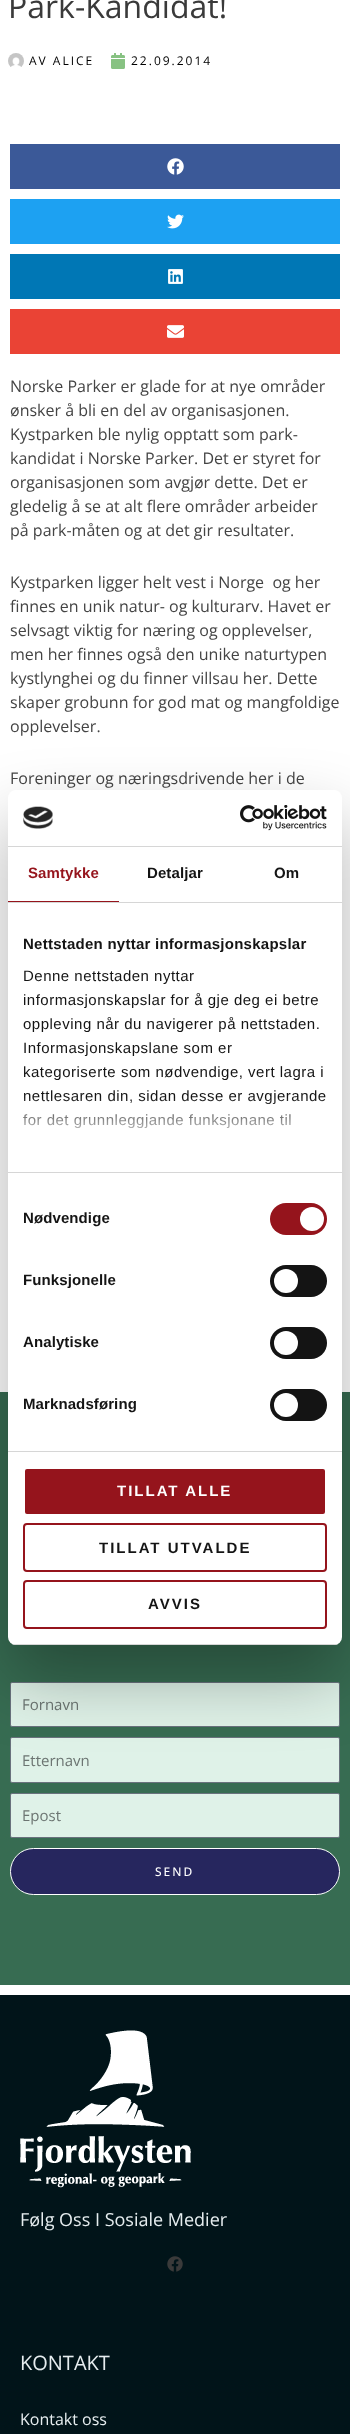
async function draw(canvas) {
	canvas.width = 350;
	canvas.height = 2434;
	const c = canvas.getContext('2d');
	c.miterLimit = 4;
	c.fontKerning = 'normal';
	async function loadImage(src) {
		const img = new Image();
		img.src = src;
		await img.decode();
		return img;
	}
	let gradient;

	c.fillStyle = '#fff';
	c.fillRect(0, 0, 350, 2434);
	c.font = '32px Open Sans';
	c.fillStyle = '#3a3a3a';
	c.fillText('Park-Kandidat!', 8, 18);
	c.drawImage(await loadImage('img1.png'), 8, 53, 16, 14);
	c.letterSpacing = '2px';
	c.font = '12px Open Sans';
	c.fillStyle = '#000';
	c.fillText('AV ALICE', 29, 65);
	c.drawImage(await loadImage('img2.png'), 111, 53, 14, 16);
	c.fillText('22.09.2014', 131, 65);
	c.fillStyle = '#3b5998';
	c.fillRect(10, 144, 330, 45);
	c.drawImage(await loadImage('img3.png'), 167, 158, 17, 17);
	c.fillStyle = '#1da1f2';
	c.fillRect(10, 199, 330, 45);
	c.drawImage(await loadImage('img4.png'), 167, 214, 17, 15);
	c.fillStyle = '#0077b5';
	c.fillRect(10, 254, 330, 45);
	c.drawImage(await loadImage('img5.png'), 168, 269, 15, 15);
	c.fillStyle = '#ea4335';
	c.fillRect(10, 309, 330, 45);
	c.drawImage(await loadImage('img6.png'), 167, 325, 17, 13);
	c.letterSpacing = '0px';
	c.font = '16px Open Sans';
	c.fillStyle = '#444';
	for (const [text, x, y] of [
		['Norske Parker er glade for at nye områder', 10, 392],
		['ønsker å bli en del av organisasjonen.', 10, 416],
		['Kystparken ble nylig opptatt som park-', 10, 440],
		['kandidat i Norske Parker. Det er styret for', 10, 464],
		['organisasjonen som avgjør dette. Det er', 10, 488],
		['gledelig å se at alt flere områder arbeider', 10, 512],
		['på park-måten og at det gir resultater.', 10, 536],
		['Kystparken ligger helt vest i Norge  og her', 10, 588],
		['finnes en unik natur- og kulturarv. Havet er', 10, 612],
		['selvsagt viktig for næring og opplevelser,', 10, 636],
		['men her finnes også den unike naturtypen', 10, 660],
		['kystlynghei og du finner villsau her. Dette', 10, 684],
		['skaper grobunn for god mat og mangfoldige', 10, 708],
		['opplevelser.', 10, 732],
		['Foreninger og næringsdrivende her i de', 10, 784],
	]) {
		c.fillText(text, x, y);
	}
	c.fillStyle = '#376c52';
	c.fillRect(0, 1392, 350, 593);
	c.fillStyle = '#dff2e8';
	c.beginPath();
	c.roundRect(10.5, 1682.5, 329, 44, 1.5);
	c.fill();
	c.strokeStyle = '#69727d';
	c.stroke();
	c.font = '15px Open Sans';
	c.fillStyle = '#6c7572';
	c.fillText('Fornavn', 22, 1710);
	c.fillStyle = '#dff2e8';
	c.beginPath();
	c.roundRect(10.5, 1737.5, 329, 45, 1.5);
	c.fill();
	c.stroke();
	c.fillStyle = '#6c7572';
	c.fillText('Etternavn', 22, 1766);
	c.fillStyle = '#dff2e8';
	c.beginPath();
	c.roundRect(10.5, 1793.5, 329, 44, 1.5);
	c.fill();
	c.stroke();
	c.fillStyle = '#6c7572';
	c.fillText('Epost', 22, 1821);
	c.fillStyle = '#26265e';
	c.beginPath();
	c.roundRect(10.5, 1848.5, 329, 46, 23);
	c.fill();
	c.strokeStyle = '#fff';
	c.stroke();
	c.letterSpacing = '2px';
	c.font = '500 12px Open Sans';
	c.fillStyle = '#fff';
	c.fillText('SEND', 155, 1876);
	c.fillStyle = '#011419';
	c.fillRect(0, 1995, 350, 439);
	c.drawImage(await loadImage('img7.png'), 20, 2030, 171, 158);
	c.letterSpacing = '0px';
	c.font = '18px Open Sans';
	c.fillStyle = '#e6edef';
	c.fillText('Følg Oss I Sosiale Medier', 20, 2226);
	c.drawImage(await loadImage('img8.png'), 167, 2256, 16, 16);
	c.font = '20px Open Sans';
	c.fillText('KONTAKT', 20, 2370);
	c.font = '16px Open Sans';
	c.fillText('Kontakt oss', 20, 2425);
	c.fillStyle = '#0000004d';
	c.filter = 'blur(34px)';
	c.beginPath();
	c.roundRect(8, 822, 334, 855, 8);
	c.fill();
	c.filter = 'none';
	c.fillStyle = '#fff';
	c.beginPath();
	c.roundRect(8, 790, 334, 855, 8);
	c.fill();
	c.fillStyle = '#d6d6d6';
	c.fillRect(8, 846, 334, 1);
	c.drawImage(await loadImage('img9.png'), 23, 806, 30, 23);
	c.drawImage(await loadImage('img10.png'), 240, 805, 87, 26);
	c.fillRect(8, 902, 334, 1);
	c.fillStyle = '#95141c';
	c.fillRect(8, 901, 111, 1);
	c.letterSpacing = '0.1px';
	c.font = 'bold 15px Liberation Sans';
	c.fillText('Samtykke', 28, 878);
	c.fillStyle = '#141414';
	c.fillText('Detaljar', 147, 878);
	c.fillText('Om', 274, 878);
	c.fillStyle = '#d6d6d6';
	c.fillRect(8, 1172, 334, 1);
	c.letterSpacing = '0.25px';
	c.fillStyle = '#141414';
	c.fillText('Nettstaden nyttar informasjonskapslar', 23, 949);
	c.letterSpacing = '0.5px';
	c.font = '15px Liberation Sans';
	for (const [text, x, y] of [
		['Denne nettstaden nyttar', 23, 981],
		['informasjonskapslar for å gje deg ei betre', 23, 1005],
		['oppleving når du navigerer på nettstaden.', 23, 1029],
		['Informasjonskapslane som er', 23, 1053],
		['kategoriserte som nødvendige, vert lagra i', 23, 1077],
		['nettlesaren din, sidan desse er avgjerande', 23, 1101],
		['for det grunnleggjande funksjonane til', 23, 1125],
	]) {
		c.fillText(text, x, y);
	}
	gradient = c.createLinearGradient(169, 1172, 169, 1097);
	gradient.addColorStop(0, '#fff');
	gradient.addColorStop(0.5, '#ffffffcc');
	gradient.addColorStop(1, '#ffffff00');
	c.fillStyle = gradient;
	c.fillRect(23, 1098, 302, 31);
	c.fillStyle = '#d6d6d6';
	c.fillRect(8, 1451, 334, 1);
	c.letterSpacing = '0.1px';
	c.font = 'bold 15px Liberation Sans';
	c.fillStyle = '#141414';
	c.fillText('Nødvendige', 23, 1223);
	c.fillStyle = '#95141c';
	c.beginPath();
	c.roundRect(270, 1203, 57, 32, 16);
	c.fill();
	c.fillStyle = '#fff';
	c.beginPath();
	c.arc(312, 1219, 12, 0, 2 * Math.PI);
	c.fill();
	c.fillStyle = '#141414';
	c.fillText('Funksjonelle', 23, 1285);
	c.beginPath();
	c.roundRect(270, 1265, 57, 32, 16);
	c.fill();
	c.fillStyle = '#fff';
	c.beginPath();
	c.arc(286, 1281, 12, 0, 2 * Math.PI);
	c.fill();
	c.fillStyle = '#141414';
	c.fillText('Analytiske', 23, 1347);
	c.beginPath();
	c.roundRect(270, 1327, 57, 32, 16);
	c.fill();
	c.fillStyle = '#fff';
	c.beginPath();
	c.arc(286, 1343, 12, 0, 2 * Math.PI);
	c.fill();
	c.fillStyle = '#141414';
	c.fillText('Marknadsføring', 23, 1409);
	c.beginPath();
	c.roundRect(270, 1389, 57, 32, 16);
	c.fill();
	c.fillStyle = '#fff';
	c.beginPath();
	c.arc(286, 1405, 12, 0, 2 * Math.PI);
	c.fill();
	c.save();
	c.beginPath();
	c.roundRect(8, 790, 334, 855, 8);
	c.clip();
	c.fillStyle = '#d6d6d6';
	c.fillRect(8, 1644, 334, 1);
	c.restore();
	c.fillStyle = '#95141c';
	c.beginPath();
	c.roundRect(24, 1468, 302, 47, 3);
	c.fill();
	c.lineWidth = 2;
	c.stroke();
	c.letterSpacing = '2px';
	c.fillStyle = '#fff';
	c.fillText('TILLAT ALLE', 117, 1496);
	c.beginPath();
	c.roundRect(24, 1524, 302, 47, 3);
	c.strokeStyle = '#95141c';
	c.stroke();
	c.fillStyle = '#141414';
	c.fillText('TILLAT UTVALDE', 99, 1553);
	c.beginPath();
	c.roundRect(24, 1581, 302, 47, 3);
	c.stroke();
	c.fillText('AVVIS', 148, 1609);
}

draw(document.querySelector('canvas'));
